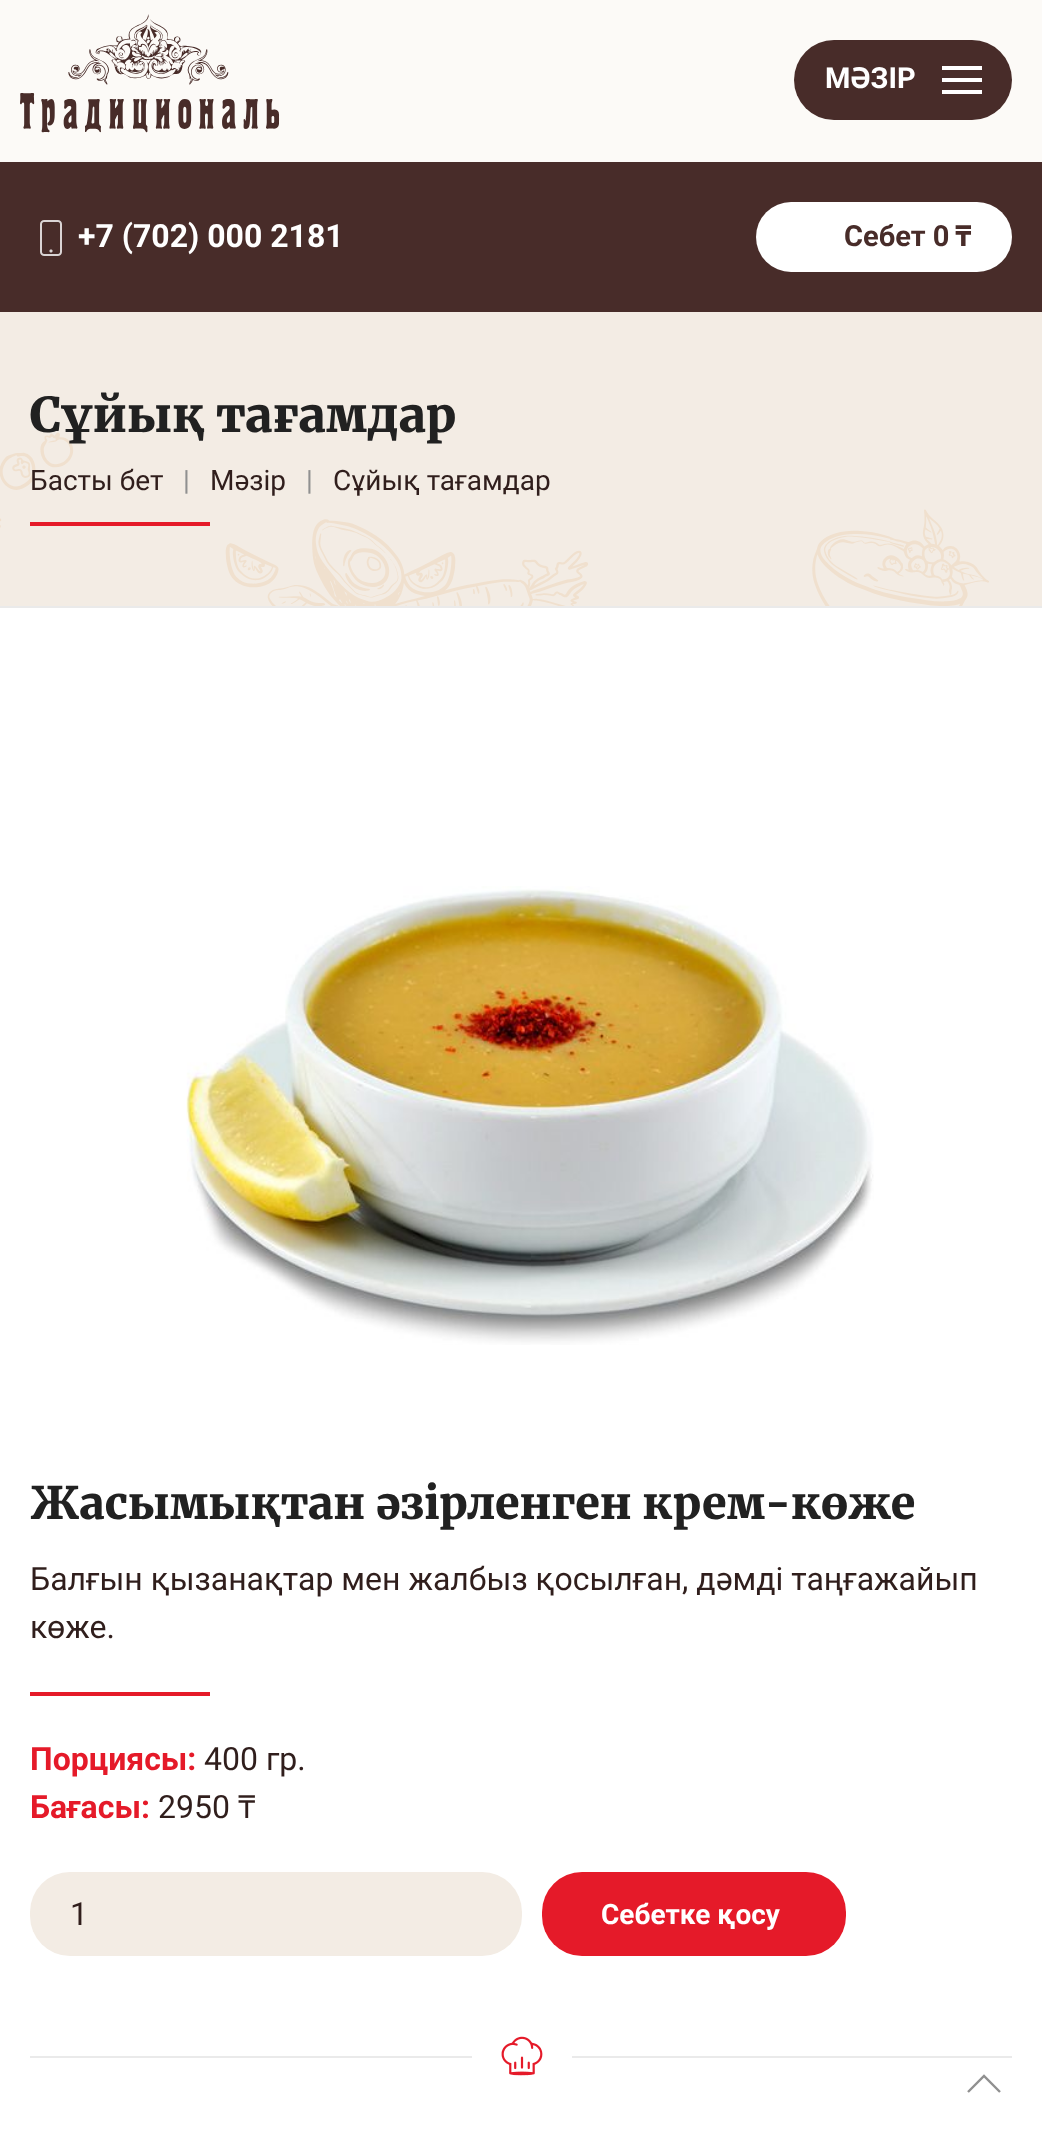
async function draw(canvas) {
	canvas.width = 1042;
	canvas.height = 2136;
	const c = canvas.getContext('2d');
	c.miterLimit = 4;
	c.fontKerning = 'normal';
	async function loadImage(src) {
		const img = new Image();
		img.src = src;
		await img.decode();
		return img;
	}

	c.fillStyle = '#fff';
	c.fillRect(0, 0, 1042, 2136);
	c.fillStyle = '#fcfaf7';
	c.fillRect(0, 0, 1042, 162);
	c.drawImage(await loadImage('img1.png'), 20, 14, 260, 119);
	c.fillStyle = '#482c29';
	c.beginPath();
	c.roundRect(794, 40, 218, 80, 40);
	c.fill();
	c.font = 'bold 29px Roboto';
	c.fillStyle = '#fff';
	c.fillText('МӘЗІР', 825, 88);
	for (const [x, y, w, h, color] of [
		[942, 66, 40, 4, '#fff'],
		[942, 78, 40, 4, '#fff'],
		[942, 90, 40, 4, '#fff'],
		[0, 162, 1042, 150, '#482c29'],
	]) {
		c.fillStyle = color;
		c.fillRect(x, y, w, h);
	}
	c.drawImage(await loadImage('img2.png'), 40, 220, 22, 36);
	c.font = 'bold 32px Roboto';
	c.fillStyle = '#fff';
	c.fillText('+7 (702) 000 2181', 78, 247);
	c.beginPath();
	c.roundRect(756, 202, 256, 70, 35);
	c.fill();
	c.font = 'bold 29px Roboto';
	c.fillStyle = '#482c29';
	c.fillText('Себет 0', 844, 246);
	c.font = 'bold 29px Noto Sans';
	c.fillText('₸', 955, 246);
	c.fillStyle = '#f3ece4';
	c.fillRect(0, 312, 1042, 294);
	c.drawImage(await loadImage('img3.png'), 0, 432, 989, 174);
	c.font = '300 48px Merriweather';
	c.fillStyle = '#212121';
	c.fillText('Сұйық тағамдар', 30, 432);
	c.font = '28px Roboto';
	c.fillStyle = '#301e1c';
	c.fillText('Басты бет', 30, 490);
	c.fillStyle = '#909090';
	c.fillText('|', 183, 490);
	c.fillStyle = '#301e1c';
	c.fillText('Мәзір', 210, 490);
	c.fillStyle = '#909090';
	c.fillText('|', 306, 490);
	c.fillStyle = '#301e1c';
	c.fillText('Сұйық тағамдар', 333, 490);
	c.fillStyle = '#e51a29';
	c.fillRect(30, 522, 180, 4);
	c.fillStyle = '#eaeaea';
	c.fillRect(0, 606, 1042, 2);
	c.drawImage(await loadImage('img4.png'), 186, 886, 688, 459);
	c.font = '300 44.75px Merriweather';
	c.fillStyle = '#212121';
	c.fillText('Жасымықтан әзірленген крем-көже', 30, 1519);
	c.font = '32px Roboto';
	c.fillStyle = '#301e1c';
	c.fillText('Балғын қызанақтар мен жалбыз қосылған, дәмді таңғажайып', 30, 1590);
	c.fillText('көже.', 30, 1638);
	c.fillStyle = '#e51a29';
	c.fillRect(30, 1692, 180, 4);
	c.font = 'bold 32px Roboto';
	c.fillText('Порциясы:', 30, 1770);
	c.font = '32px Roboto';
	c.fillStyle = '#301e1c';
	c.fillText('400 гр.', 204, 1770);
	c.font = 'bold 32px Roboto';
	c.fillStyle = '#e51a29';
	c.fillText('Бағасы:', 30, 1818);
	c.font = '32px Roboto';
	c.fillStyle = '#301e1c';
	c.fillText('2950', 158, 1818);
	c.font = '32px Noto Sans';
	c.fillText('₸', 238, 1818);
	c.fillStyle = '#f3ece4';
	c.beginPath();
	c.roundRect(30, 1872, 492, 84, 40);
	c.fill();
	c.font = '32px Roboto';
	c.fillStyle = '#301e1c';
	c.fillText('1', 70, 1925);
	c.fillStyle = '#e51a29';
	c.beginPath();
	c.roundRect(542, 1872, 304, 84, 40);
	c.fill();
	c.font = 'bold 28px Roboto';
	c.fillStyle = '#fff';
	c.fillText('Себетке қосу', 601, 1924);
	c.drawImage(await loadImage('img5.png'), 501, 2036, 42, 40);
	c.fillStyle = '#eaeaea';
	c.fillRect(30, 2056, 442, 2);
	c.fillRect(572, 2056, 440, 2);
	c.beginPath();
	c.moveTo(968, 2092);
	c.lineTo(984, 2076);
	c.lineTo(1000, 2092);
	c.strokeStyle = '#909090';
	c.lineWidth = 2.4;
	c.stroke();
}

draw(document.querySelector('canvas'));
